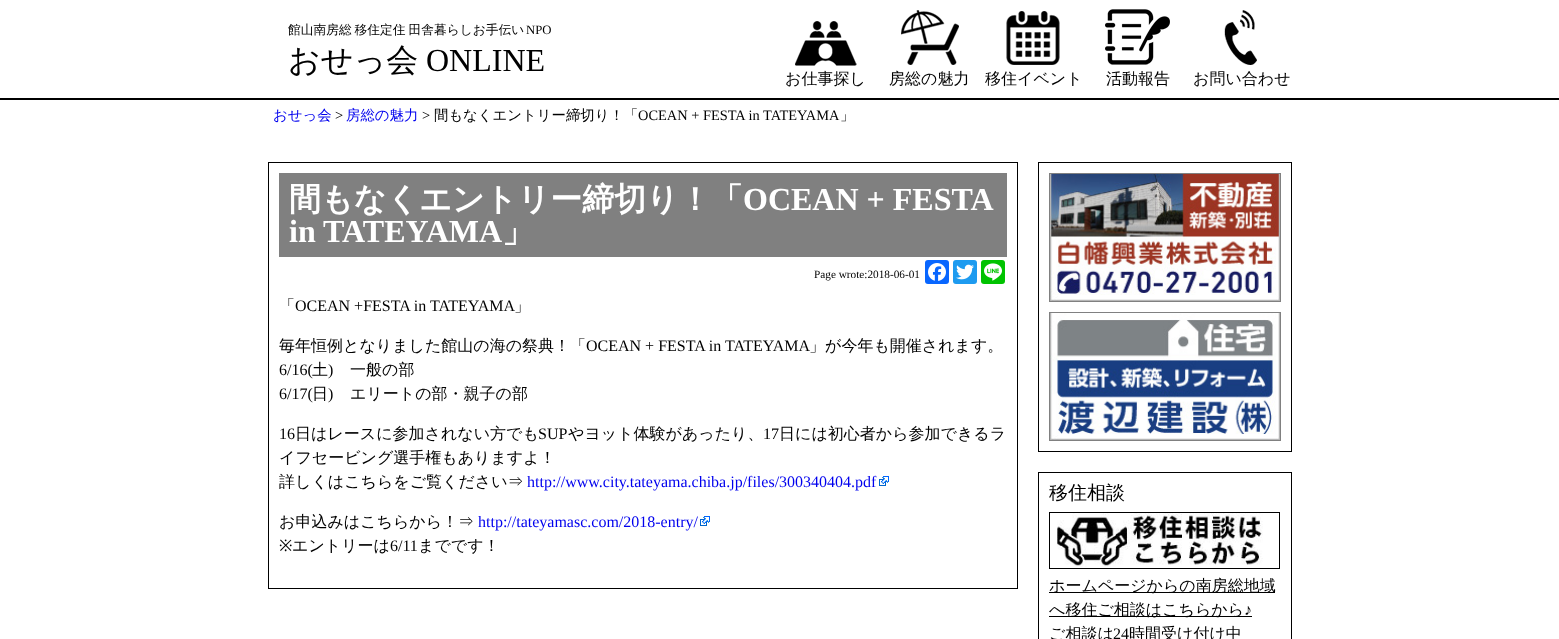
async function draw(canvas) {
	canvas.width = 1559;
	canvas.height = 639;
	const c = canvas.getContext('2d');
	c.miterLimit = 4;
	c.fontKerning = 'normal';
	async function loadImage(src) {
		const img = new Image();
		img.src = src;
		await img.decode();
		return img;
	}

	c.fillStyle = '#fff';
	c.fillRect(0, 0, 1559, 639);
	c.fillStyle = '#000';
	c.fillRect(0, 98, 1559, 2);
	c.wordSpacing = '-1px';
	c.font = '500 12.75px WenQuanYi Zen Hei';
	c.fillText('館山南房総 移住定住 田舎暮らしお手伝い', 288, 34);
	c.wordSpacing = '0px';
	c.font = '12.75px Liberation Serif';
	c.fillText('NPO', 526, 34);
	c.font = '500 32px WenQuanYi Zen Hei';
	c.fillText('おせっ会', 288, 71);
	c.font = '32px Liberation Serif';
	c.fillText('ONLINE', 426, 71);
	c.drawImage(await loadImage('img1.png'), 795, 21, 62, 45);
	c.font = '500 16px WenQuanYi Zen Hei';
	c.fillText('お仕事探し', 785, 84);
	c.drawImage(await loadImage('img2.png'), 901, 10, 58, 55);
	c.fillText('房総の魅力', 889, 84);
	c.drawImage(await loadImage('img3.png'), 1006, 11, 54, 54);
	c.fillText('移住イベント', 985, 84);
	c.drawImage(await loadImage('img4.png'), 1105, 9, 65, 56);
	c.fillText('活動報告', 1106, 84);
	c.drawImage(await loadImage('img5.png'), 1224, 10, 33, 55);
	c.fillText('お問い合わせ', 1193, 84);
	c.font = '500 14.4px WenQuanYi Zen Hei';
	c.fillStyle = '#00e';
	c.fillText('おせっ会', 273, 120);
	c.font = '14.4px Liberation Serif';
	c.fillStyle = '#000';
	c.fillText('>', 335, 120);
	c.font = '500 14.4px WenQuanYi Zen Hei';
	c.fillStyle = '#00e';
	c.fillText('房総の魅力', 346, 120);
	c.font = '14.4px Liberation Serif';
	c.fillStyle = '#000';
	c.fillText('>', 422, 120);
	c.font = '500 14.4px WenQuanYi Zen Hei';
	c.fillText('間もなくエントリー締切り！「', 434, 120);
	c.font = '14.4px Liberation Serif';
	c.fillText('OCEAN + FESTA in TATEYAMA', 638, 120);
	c.font = '500 14.4px WenQuanYi Zen Hei';
	c.fillText('」', 840, 120);
	c.strokeStyle = '#000';
	c.strokeRect(268.5, 162.5, 749, 426);
	c.fillStyle = '#808080';
	c.fillRect(279, 173, 728, 84);
	c.font = 'bold 32px WenQuanYi Zen Hei';
	c.fillStyle = '#fff';
	c.fillText('間もなくエントリー締切り！「', 289, 210);
	c.font = 'bold 32px Liberation Serif';
	c.fillText('OCEAN + FESTA', 743, 210);
	c.fillText('in TATEYAMA', 289, 242);
	c.font = 'bold 32px WenQuanYi Zen Hei';
	c.fillText('」', 502, 242);
	c.font = '11.25px Liberation Serif';
	c.fillStyle = '#000';
	c.fillText('Page wrote:2018-06-01', 814, 278);
	c.fillStyle = '#0866ff';
	c.beginPath();
	c.roundRect(925, 260, 24, 24, 3);
	c.fill();
	c.drawImage(await loadImage('img6.png'), 928, 263, 18, 18);
	c.fillStyle = '#1d9bf0';
	c.beginPath();
	c.roundRect(953, 260, 24, 24, 3);
	c.fill();
	c.drawImage(await loadImage('img7.png'), 956, 264, 18, 16);
	c.fillStyle = '#00c300';
	c.beginPath();
	c.roundRect(981, 260, 24, 24, 3);
	c.fill();
	c.drawImage(await loadImage('img8.png'), 984, 263, 18, 18);
	c.font = '500 16px WenQuanYi Zen Hei';
	c.fillStyle = '#000';
	c.fillText('「', 279, 311);
	c.font = '16px Liberation Serif';
	c.fillText('OCEAN +FESTA in TATEYAMA', 295, 311);
	c.font = '500 16px WenQuanYi Zen Hei';
	c.fillText('」', 514, 311);
	c.fillText('毎年恒例となりました館山の海の祭典！「', 279, 351);
	c.font = '16px Liberation Serif';
	c.fillText('OCEAN + FESTA in TATEYAMA', 586, 351);
	c.font = '500 16px WenQuanYi Zen Hei';
	c.fillText('」が今年も開催されます。', 809, 351);
	c.font = '16px Liberation Serif';
	c.fillText('6/16(', 279, 375);
	c.font = '500 16px WenQuanYi Zen Hei';
	c.fillText('土', 312, 375);
	c.font = '16px Liberation Serif';
	c.fillText(')', 328, 375);
	c.font = '500 16px WenQuanYi Zen Hei';
	c.fillText('一般の部', 350, 375);
	c.font = '16px Liberation Serif';
	c.fillText('6/17(', 279, 399);
	c.font = '500 16px WenQuanYi Zen Hei';
	c.fillText('日', 312, 399);
	c.font = '16px Liberation Serif';
	c.fillText(')', 328, 399);
	c.font = '500 16px WenQuanYi Zen Hei';
	c.fillText('エリートの部・親子の部', 350, 399);
	c.font = '16px Liberation Serif';
	c.fillText('16', 279, 439);
	c.font = '500 16px WenQuanYi Zen Hei';
	c.fillText('日はレースに参加されない方でも', 295, 439);
	c.font = '16px Liberation Serif';
	c.fillText('SUP', 538, 439);
	c.font = '500 16px WenQuanYi Zen Hei';
	c.fillText('やヨット体験があったり、', 568, 439);
	c.font = '16px Liberation Serif';
	c.fillText('17', 763, 439);
	c.font = '500 16px WenQuanYi Zen Hei';
	for (const [text, x, y] of [
		['日には初心者から参加できるラ', 779, 439],
		['イフセービング選手権もありますよ！', 279, 463],
		['詳しくはこちらをご覧ください⇒', 279, 487],
	]) {
		c.fillText(text, x, y);
	}
	c.font = '16px Liberation Serif';
	c.fillStyle = '#00e';
	c.fillText('http://www.city.tateyama.chiba.jp/files/300340404.pdf', 527, 487);
	c.drawImage(await loadImage('img9.png'), 879, 476, 10, 10);
	c.font = '500 16px WenQuanYi Zen Hei';
	c.fillStyle = '#000';
	c.fillText('お申込みはこちらから！⇒', 279, 527);
	c.font = '16px Liberation Serif';
	c.fillStyle = '#00e';
	c.fillText('http://tateyamasc.com/2018-entry/', 478, 527);
	c.drawImage(await loadImage('img9.png'), 700, 516, 10, 10);
	c.font = '16px Noto Sans';
	c.fillStyle = '#000';
	c.fillText('※', 279, 551);
	c.font = '500 16px WenQuanYi Zen Hei';
	c.fillText('エントリーは', 292, 551);
	c.font = '16px Liberation Serif';
	c.fillText('6/11', 390, 551);
	c.font = '500 16px WenQuanYi Zen Hei';
	c.fillText('までです！', 418, 551);
	c.strokeRect(1038.5, 162.5, 253, 289);
	c.strokeStyle = '#808080';
	c.strokeRect(1049.5, 173.5, 231, 128);
	c.drawImage(await loadImage('img10.png'), 1050, 174, 230, 127);
	c.strokeRect(1049.5, 312.5, 231, 128);
	c.drawImage(await loadImage('img11.png'), 1050, 313, 230, 127);
	c.strokeStyle = '#000';
	c.strokeRect(1038.5, 472.5, 253, 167);
	c.font = '500 19px WenQuanYi Zen Hei';
	c.fillText('移住相談', 1049, 499);
	c.strokeRect(1049.5, 512.5, 230, 56);
	c.drawImage(await loadImage('img12.png'), 1057, 513, 206, 54);
	c.fillRect(1049, 592, 226, 1);
	c.font = '500 16px WenQuanYi Zen Hei';
	c.fillText('ホームページからの南房総地域', 1049, 591);
	c.fillRect(1049, 616, 203, 1);
	c.fillText('へ移住ご相談はこちらから', 1049, 615);
	c.font = '16px Liberation Serif';
	c.fillText('♪', 1244, 615);
	c.font = '500 16px WenQuanYi Zen Hei';
	c.fillText('ご相談は', 1049, 639);
	c.font = '16px Liberation Serif';
	c.fillText('24', 1113, 639);
	c.font = '500 16px WenQuanYi Zen Hei';
	c.fillText('時間受け付け中', 1129, 639);
}

draw(document.querySelector('canvas'));
